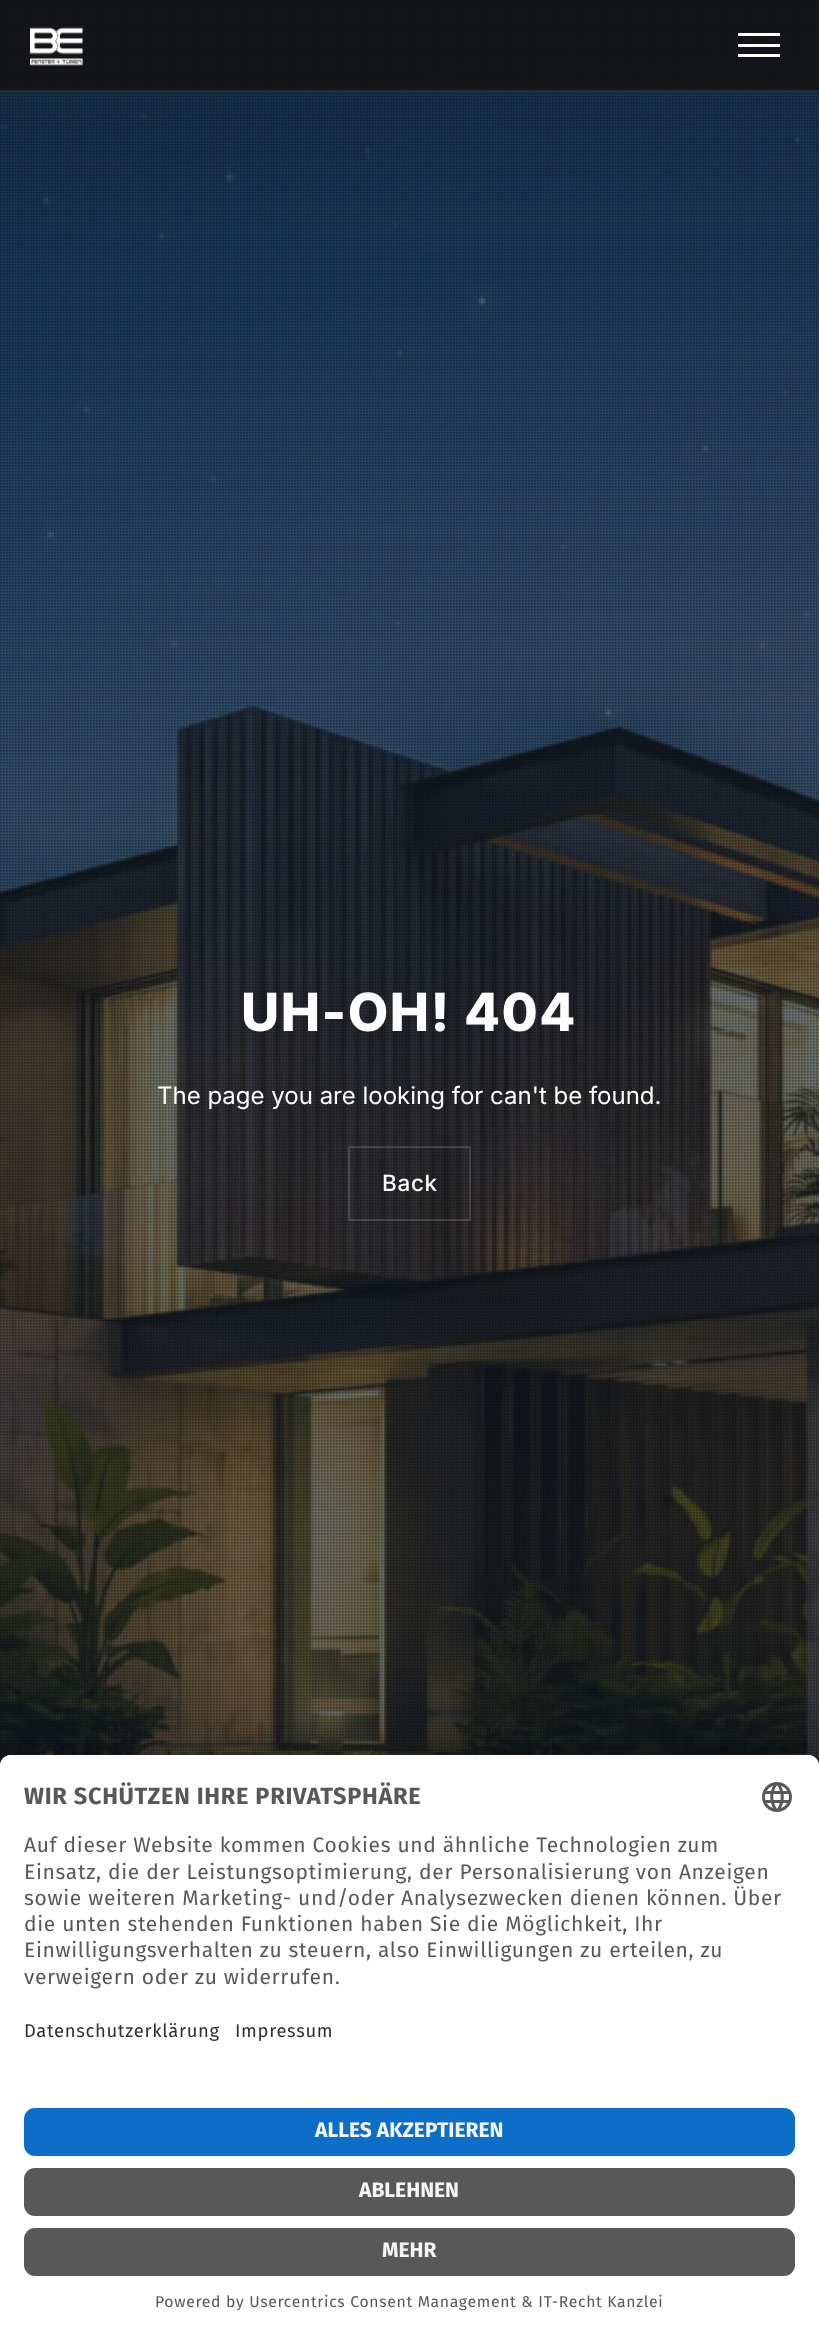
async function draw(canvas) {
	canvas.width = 819;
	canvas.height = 2335;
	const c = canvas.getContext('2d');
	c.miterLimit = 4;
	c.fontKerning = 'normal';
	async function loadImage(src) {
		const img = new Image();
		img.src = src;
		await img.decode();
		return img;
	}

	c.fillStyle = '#fff';
	c.fillRect(0, 0, 819, 2335);
	c.drawImage(await loadImage('img2.png'), 0, 0, 819, 1766);
	c.drawImage(await loadImage('img3.png'), 0, 0, 819, 1766);
	c.fillStyle = '#131416fa';
	c.fillRect(0, 0, 819, 90);
	c.fillStyle = '#2b2c2e';
	c.fillRect(0, 90, 819, 2);
	c.drawImage(await loadImage('img1.png'), 30, 27, 53, 39);
	for (const [x, y, w, h, color] of [
		[738, 44, 42, 3, '#fff'],
		[738, 33, 42, 3, '#fff'],
		[738, 54, 42, 3, '#fff'],
	]) {
		c.fillStyle = color;
		c.fillRect(x, y, w, h);
	}
	c.letterSpacing = '1.5px';
	c.font = '800 52.5px Inter';
	c.fillText('UH-OH! 404', 241, 1031);
	c.letterSpacing = '0px';
	c.font = '24px Inter';
	c.fillText('The page you are looking for can\'t be found.', 157, 1104);
	c.strokeStyle = '#ffffff26';
	c.lineWidth = 2;
	c.strokeRect(349, 1147, 121, 73);
	c.letterSpacing = '0.68px';
	c.font = '500 22.5px Inter';
	c.fillText('Back', 382, 1191);
	c.fillStyle = '#0000004d';
	c.filter = 'blur(21px)';
	c.beginPath();
	c.roundRect(0, 1785, 819, 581, 11);
	c.fill();
	c.filter = 'none';
	c.fillStyle = '#00000038';
	c.filter = 'blur(19.5px)';
	c.beginPath();
	c.roundRect(0, 1763, 819, 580, 11);
	c.fill();
	c.filter = 'none';
	c.fillStyle = '#fff';
	c.beginPath();
	c.moveTo(11, 1755);
	c.lineTo(808, 1755);
	c.bezierCurveTo(814, 1755, 819, 1760, 819, 1766);
	c.lineTo(819, 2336);
	c.lineTo(0, 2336);
	c.lineTo(0, 1766);
	c.bezierCurveTo(0, 1760, 5, 1755, 11, 1755);
	c.closePath();
	c.fill();
	c.beginPath();
	c.roundRect(0, 1755, 819, 335, [11, 11, 0, 0]);
	c.fill();
	c.font = 'bold 23.6px Fira Sans';
	c.fillStyle = '#595857';
	c.fillText('WIR SCHÜTZEN IHRE PRIVATSPHÄRE', 24, 1804);
	c.drawImage(await loadImage('img4.png'), 762, 1782, 30, 30);
	c.font = '21px Fira Sans';
	for (const [text, x, y] of [
		['Auf dieser Website kommen Cookies und ähnliche Technologien zum', 24, 1852],
		['Einsatz, die der Leistungsoptimierung, der Personalisierung von Anzeigen', 24, 1879],
		['sowie weiteren Marketing- und/oder Analysezwecken dienen können. Über', 24, 1905],
		['die unten stehenden Funktionen haben Sie die Möglichkeit, Ihr', 24, 1931],
		['Einwilligungsverhalten zu steuern, also Einwilligungen zu erteilen, zu', 24, 1957],
		['verweigern oder zu widerrufen.', 24, 1984],
	]) {
		c.fillText(text, x, y);
	}
	c.font = '18.4px Fira Sans';
	c.fillStyle = '#303030';
	c.fillText('Datenschutzerklärung', 24, 2037);
	c.fillText('Impressum', 235, 2037);
	c.fillStyle = '#0c6ec6';
	c.beginPath();
	c.roundRect(24, 2108, 771, 48, 11);
	c.fill();
	c.letterSpacing = '0px';
	c.font = 'bold 21px Fira Sans';
	c.fillStyle = '#f5f5f5';
	c.fillText('ALLES AKZEPTIEREN', 315, 2137);
	c.fillStyle = '#585858';
	c.beginPath();
	c.roundRect(24, 2168, 771, 48, 11);
	c.fill();
	c.fillStyle = '#f5f5f5';
	c.fillText('ABLEHNEN', 359, 2197);
	c.fillStyle = '#585858';
	c.beginPath();
	c.roundRect(24, 2228, 771, 48, 11);
	c.fill();
	c.fillStyle = '#f5f5f5';
	c.fillText('MEHR', 382, 2257);
	c.letterSpacing = '0.68px';
	c.font = '15.75px Fira Sans';
	c.fillStyle = '#595857';
	c.fillText('Powered by Usercentrics Consent Management & IT-Recht Kanzlei', 155, 2307);
}

draw(document.querySelector('canvas'));
